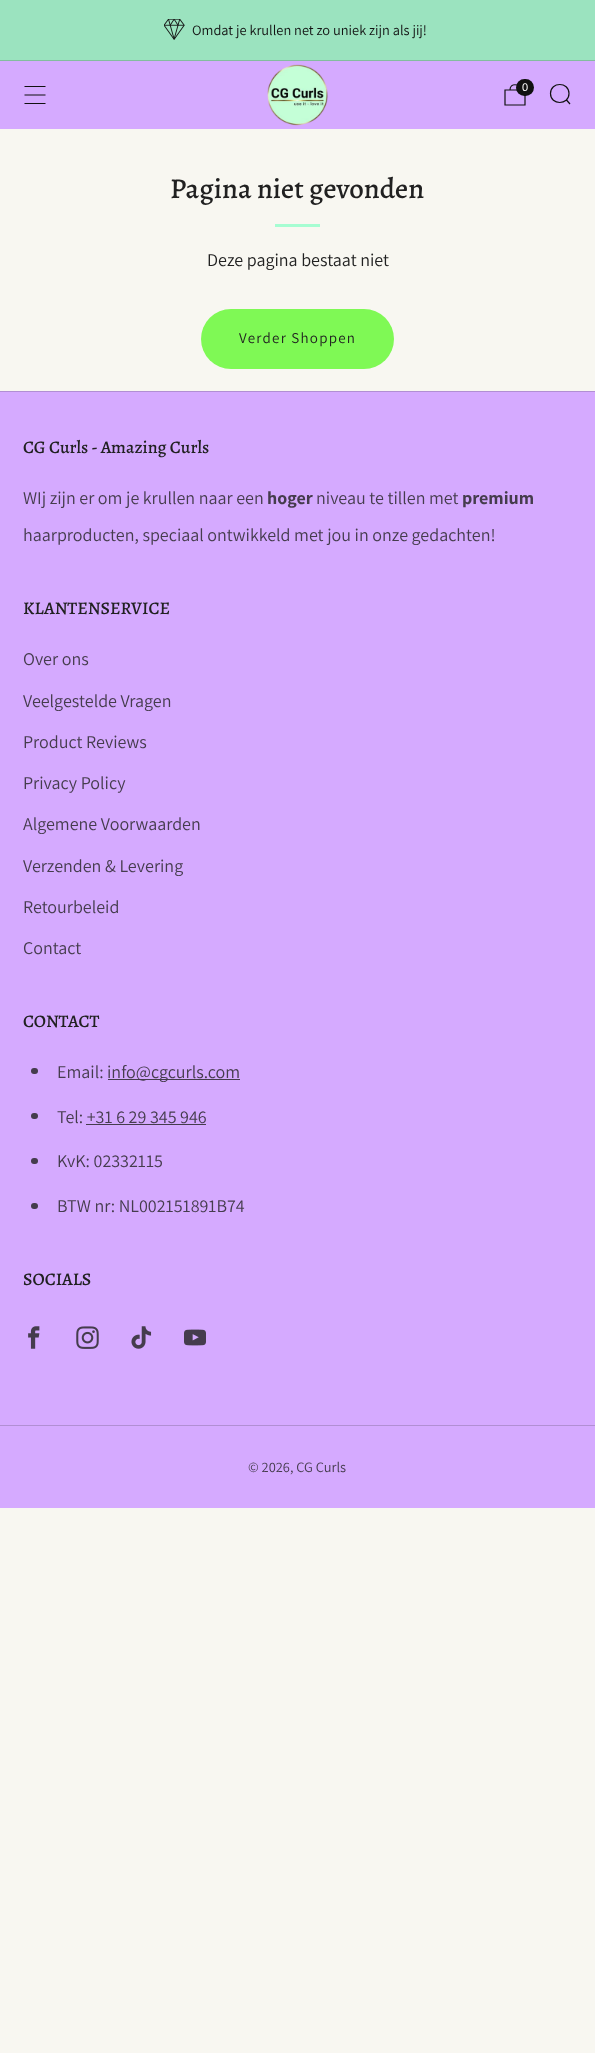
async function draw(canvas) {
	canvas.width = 595;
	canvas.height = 2053;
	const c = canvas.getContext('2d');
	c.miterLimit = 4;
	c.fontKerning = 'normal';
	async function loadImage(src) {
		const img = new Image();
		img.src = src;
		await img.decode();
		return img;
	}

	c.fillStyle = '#f8f7f1';
	c.fillRect(0, 0, 595, 2053);
	c.fillStyle = '#9be3bf';
	c.fillRect(0, 0, 595, 60);
	c.fillStyle = '#83bc9f';
	c.fillRect(0, 60, 595, 1);
	c.drawImage(await loadImage('img1.png'), 164, 19, 21, 21);
	c.font = '14.4px Assistant';
	c.fillStyle = '#131313';
	c.fillText('Omdat je krullen net zo uniek zijn als jij!', 192, 35);
	c.fillStyle = '#d5aaff';
	c.fillRect(0, 61, 595, 68);
	c.beginPath();
	c.moveTo(24.5, 86.5);
	c.lineTo(45.5, 86.5);
	c.moveTo(24.5, 95);
	c.lineTo(45.5, 95);
	c.moveTo(24.5, 103.5);
	c.lineTo(45.5, 103.5);
	c.strokeStyle = '#111';
	c.lineWidth = 1.2;
	c.stroke();
	c.drawImage(await loadImage('img2.png'), 267, 64, 61, 62);
	c.beginPath();
	c.moveTo(520, 90);
	c.bezierCurveTo(520, 83, 510, 83, 510, 90);
	c.moveTo(505, 90);
	c.lineTo(525, 90);
	c.lineTo(525, 105);
	c.lineTo(505, 105);
	c.closePath();
	c.stroke();
	c.fillStyle = '#111';
	c.beginPath();
	c.roundRect(516, 79, 18, 17, 8.5);
	c.fill();
	c.font = '11px Liberation Sans';
	c.fillStyle = '#fff';
	c.fillText('0', 522, 91);
	c.beginPath();
	c.moveTo(566.5, 100);
	c.lineTo(570, 104);
	c.moveTo(569, 93.5);
	c.bezierCurveTo(569, 105.5, 550.5, 105.5, 550.5, 93.5);
	c.bezierCurveTo(550.5, 81.5, 569, 81.5, 569, 93.5);
	c.closePath();
	c.stroke();
	c.font = '500 28.75px Alegreya';
	c.fillStyle = '#212121';
	c.fillText('Pagina niet gevonden', 170, 198);
	c.fillStyle = '#a6fdd2';
	c.fillRect(275, 224, 45, 3);
	c.font = '18px Assistant';
	c.fillStyle = '#212121';
	c.fillText('Deze pagina bestaat niet', 207, 266);
	c.fillStyle = '#7ff955';
	c.beginPath();
	c.roundRect(201, 309, 193, 60, 30);
	c.fill();
	c.letterSpacing = '1.25px';
	c.font = '15px Assistant';
	c.fillStyle = '#212121';
	c.fillText('Verder Shoppen', 239, 343);
	c.fillStyle = '#d5aaff';
	c.fillRect(0, 392, 595, 1116);
	c.fillStyle = '#b18fd3';
	c.fillRect(0, 391, 595, 1);
	c.letterSpacing = '0px';
	c.font = '500 17.8px Alegreya';
	c.fillStyle = '#212121';
	c.fillText('CG Curls - Amazing Curls', 23, 453);
	c.font = '18px Assistant';
	c.fillStyle = '#453c4d';
	c.fillText('WIj zijn er om je krullen naar een', 23, 504);
	c.font = 'bold 18px Assistant';
	c.fillText('hoger', 267, 504);
	c.font = '18px Assistant';
	c.fillText('niveau te tillen met', 316, 504);
	c.font = 'bold 18px Assistant';
	c.fillText('premium', 462, 504);
	c.font = '18px Assistant';
	c.fillText('haarproducten, speciaal ontwikkeld met jou in onze gedachten!', 23, 541);
	c.font = '500 17.8px Alegreya';
	c.fillStyle = '#212121';
	c.fillText('KLANTENSERVICE', 23, 614);
	c.font = '18px Assistant';
	c.fillStyle = '#453c4d';
	for (const [text, x, y] of [
		['Over ons', 23, 665],
		['Veelgestelde Vragen', 23, 707],
		['Product Reviews', 23, 748],
		['Privacy Policy', 23, 789],
		['Algemene Voorwaarden', 23, 830],
		['Verzenden & Levering', 23, 872],
		['Retourbeleid', 23, 913],
		['Contact', 23, 954],
	]) {
		c.fillText(text, x, y);
	}
	c.font = '500 17.8px Alegreya';
	c.fillStyle = '#212121';
	c.fillText('CONTACT', 23, 1027);
	c.fillStyle = '#453c4d';
	c.beginPath();
	c.roundRect(31, 1068, 7, 6, 3);
	c.fill();
	c.font = '18px Assistant';
	c.fillText('Email:', 57, 1078);
	c.fillRect(108, 1079, 132, 1);
	c.fillText('info@cgcurls.com', 107, 1078);
	c.beginPath();
	c.roundRect(31, 1113, 7, 6, 3);
	c.fill();
	c.fillText('Tel: +31 6 29 345 946', 57, 1123);
	c.fillRect(86, 1124, 120, 1);
	c.beginPath();
	c.roundRect(31, 1158, 7, 6, 3);
	c.fill();
	c.fillText('KvK: 02332115', 57, 1167);
	c.beginPath();
	c.roundRect(31, 1203, 7, 6, 3);
	c.fill();
	c.fillText('BTW nr: NL002151891B74', 57, 1212);
	c.font = '500 17.8px Alegreya';
	c.fillStyle = '#212121';
	c.fillText('SOCIALS', 23, 1285);
	c.drawImage(await loadImage('img3.png'), 28, 1326, 12, 23);
	c.drawImage(await loadImage('img4.png'), 76, 1326, 23, 23);
	c.drawImage(await loadImage('img5.png'), 131, 1326, 21, 23);
	c.drawImage(await loadImage('img6.png'), 184, 1329, 22, 17);
	c.fillStyle = '#b18fd3';
	c.fillRect(0, 1425, 595, 1);
	c.font = '14.4px Assistant';
	c.fillStyle = '#453c4d';
	c.fillText('© 2026, CG Curls', 248, 1472);
}

draw(document.querySelector('canvas'));
